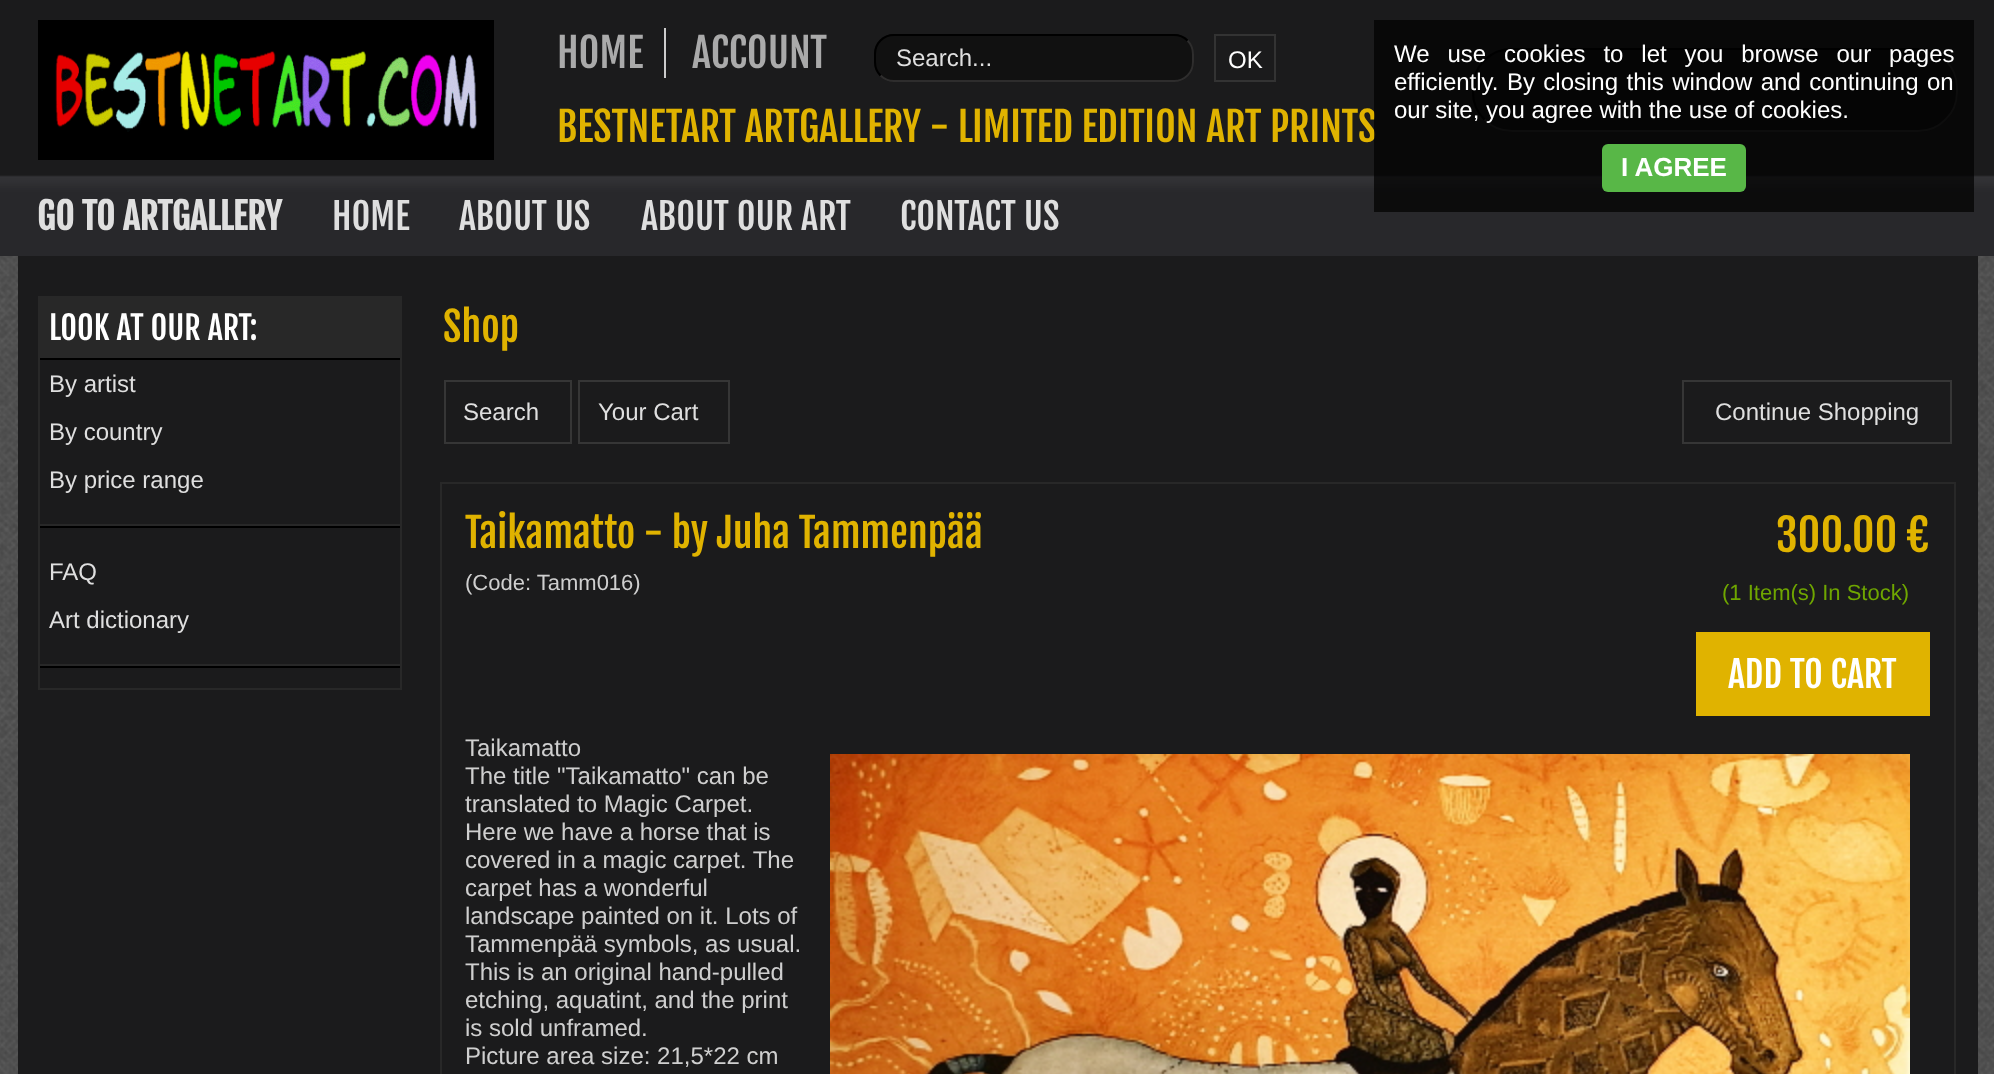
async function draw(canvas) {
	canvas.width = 1994;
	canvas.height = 1074;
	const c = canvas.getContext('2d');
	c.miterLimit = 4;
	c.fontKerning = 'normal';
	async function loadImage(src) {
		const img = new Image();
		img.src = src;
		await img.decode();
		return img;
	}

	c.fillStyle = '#fff';
	c.fillRect(0, 0, 1994, 1074);
	c.drawImage(await loadImage('img1.png'), 0, 256, 1994, 818);
	c.fillStyle = '#1b1b1c';
	c.fillRect(0, 0, 1994, 175);
	c.drawImage(await loadImage('img2.png'), 0, 175, 1994, 81);
	c.drawImage(await loadImage('img3.png'), 38, 20, 456, 140);
	c.font = '40px Fjalla One';
	c.fillStyle = '#aaa';
	c.fillText('HOME', 557, 68);
	c.fillStyle = '#ccc';
	c.fillRect(664, 28, 2, 50);
	c.fillStyle = '#aaa';
	c.fillText('ACCOUNT', 692, 68);
	c.fillStyle = '#111';
	c.beginPath();
	c.roundRect(874, 34, 320, 48, 20);
	c.fill();
	c.beginPath();
	c.moveTo(1187.5, 40.5);
	c.bezierCurveTo(1191, 44, 1193, 49, 1193, 54);
	c.lineTo(1193, 62);
	c.bezierCurveTo(1193, 67, 1191, 72, 1187.5, 75.5);
	c.bezierCurveTo(1184, 79, 1179, 81, 1174, 81);
	c.lineTo(894, 81);
	c.bezierCurveTo(889, 81, 884, 79, 880.5, 75.5);
	c.strokeStyle = '#2e2d2d';
	c.lineWidth = 2;
	c.stroke();
	c.beginPath();
	c.moveTo(880.5, 75.5);
	c.bezierCurveTo(877, 72, 875, 67, 875, 62);
	c.lineTo(875, 54);
	c.bezierCurveTo(875, 49, 877, 44, 880.5, 40.5);
	c.bezierCurveTo(884, 37, 889, 35, 894, 35);
	c.lineTo(1174, 35);
	c.bezierCurveTo(1179, 35, 1184, 37, 1187.5, 40.5);
	c.strokeStyle = '#000';
	c.stroke();
	c.font = '24px Liberation Sans';
	c.fillStyle = '#dfdfdf';
	c.fillText('Search...', 896, 66);
	c.strokeStyle = '#333';
	c.strokeRect(1215, 35, 60, 46);
	c.fillStyle = '#fff';
	c.fillText('OK', 1228, 68);
	c.fillStyle = '#111';
	c.beginPath();
	c.roundRect(1472, 48, 486, 84, 40);
	c.fill();
	c.beginPath();
	c.moveTo(1945.5, 60.5);
	c.bezierCurveTo(1953, 67.5, 1957, 77.5, 1957, 88);
	c.lineTo(1957, 92);
	c.bezierCurveTo(1957, 102.5, 1953, 112.5, 1945.5, 119.5);
	c.bezierCurveTo(1938.5, 127, 1928.5, 131, 1918, 131);
	c.lineTo(1512, 131);
	c.bezierCurveTo(1501.5, 131, 1491.5, 127, 1484.5, 119.5);
	c.strokeStyle = '#2e2d2d';
	c.stroke();
	c.beginPath();
	c.moveTo(1484.5, 119.5);
	c.bezierCurveTo(1477, 112.5, 1473, 102.5, 1473, 92);
	c.lineTo(1473, 88);
	c.bezierCurveTo(1473, 77.5, 1477, 67.5, 1484.5, 60.5);
	c.bezierCurveTo(1491.5, 53, 1501.5, 49, 1512, 49);
	c.lineTo(1918, 49);
	c.bezierCurveTo(1928.5, 49, 1938.5, 53, 1945.5, 60.5);
	c.strokeStyle = '#000';
	c.stroke();
	c.font = '40px Fjalla One';
	c.fillStyle = '#e0b300';
	c.fillText('BESTNETART ARTGALLERY - LIMITED EDITION ART PRINTS', 557, 142);
	c.font = 'bold 36px Fjalla One';
	c.fillStyle = '#dfdfdf';
	c.fillText('GO TO ARTGALLERY', 37, 230);
	c.font = '36px Fjalla One';
	for (const [text, x, y] of [
		['HOME', 332, 230],
		['ABOUT US', 459, 230],
		['ABOUT OUR ART', 641, 230],
		['CONTACT US', 900, 230],
	]) {
		c.fillText(text, x, y);
	}
	c.fillStyle = '#1b1b1c';
	c.fillRect(18, 256, 1960, 818);
	c.strokeStyle = '#282828';
	c.strokeRect(39, 297, 362, 392);
	c.fillStyle = '#282828';
	c.fillRect(40, 298, 360, 60);
	c.fillStyle = '#000';
	c.fillRect(40, 358, 360, 2);
	c.font = '32px Fjalla One';
	c.fillStyle = '#fff';
	c.fillText('LOOK AT OUR ART:', 49, 340);
	c.font = '24px Liberation Sans';
	c.fillStyle = '#dfdfdf';
	for (const [text, x, y] of [
		['By artist', 49, 392],
		['By country', 49, 440],
		['By price range', 49, 488],
	]) {
		c.fillText(text, x, y);
	}
	c.fillStyle = '#000';
	c.fillRect(40, 526, 360, 2);
	c.fillStyle = '#282828';
	c.fillRect(40, 524, 360, 2);
	c.fillStyle = '#dfdfdf';
	c.fillText('FAQ', 49, 580);
	c.fillText('Art dictionary', 49, 628);
	c.fillStyle = '#000';
	c.fillRect(40, 666, 360, 2);
	c.fillStyle = '#282828';
	c.fillRect(40, 664, 360, 2);
	c.font = '40px Fjalla One';
	c.fillStyle = '#e0b300';
	c.fillText('Shop', 443, 342);
	c.strokeStyle = '#363636';
	c.strokeRect(445, 381, 126, 62);
	c.font = '24px Liberation Sans';
	c.fillStyle = '#dfdfdf';
	c.fillText('Search', 463, 420);
	c.strokeRect(579, 381, 150, 62);
	c.fillText('Your Cart', 598, 420);
	c.strokeRect(1683, 381, 268, 62);
	c.fillText('Continue Shopping', 1715, 420);
	for (const [x, y, w, h, color] of [
		[440, 482, 1516, 2, '#282828'],
		[1954, 482, 2, 592, '#282828'],
		[440, 482, 2, 592, '#282828'],
	]) {
		c.fillStyle = color;
		c.fillRect(x, y, w, h);
	}
	c.font = '40px Fjalla One';
	c.fillStyle = '#e0b300';
	c.fillText('Taikamatto - by Juha Tammenpää', 465, 548);
	c.font = '22px Liberation Sans';
	c.fillStyle = '#cfcfcf';
	c.fillText('(Code: Tamm016)', 465, 590);
	c.font = '44px Fjalla One';
	c.fillStyle = '#e0b300';
	c.fillText('300.00 €', 1776, 552);
	c.font = '22px Liberation Sans';
	c.fillStyle = '#6fa600';
	c.fillText('(1 Item(s) In Stock)', 1722, 600);
	c.fillStyle = '#e0b300';
	c.fillRect(1696, 632, 234, 84);
	c.font = '36px Fjalla One';
	c.fillStyle = '#fff';
	c.fillText('ADD TO CART', 1728, 688);
	c.font = '24px Liberation Sans';
	c.fillStyle = '#cfcfcf';
	for (const [text, x, y] of [
		['Taikamatto', 465, 756],
		['The title "Taikamatto" can be', 465, 784],
		['translated to Magic Carpet.', 465, 812],
		['Here we have a horse that is', 465, 840],
		['covered in a magic carpet. The', 465, 868],
		['carpet has a wonderful', 465, 896],
		['landscape painted on it. Lots of', 465, 924],
		['Tammenpää symbols, as usual.', 465, 952],
		['This is an original hand-pulled', 465, 980],
		['etching, aquatint, and the print', 465, 1008],
		['is sold unframed.', 465, 1036],
		['Picture area size: 21,5*22 cm', 465, 1064],
	]) {
		c.fillText(text, x, y);
	}
	c.drawImage(await loadImage('img4.png'), 830, 754, 1080, 320);
	c.fillStyle = '#000000b3';
	c.fillRect(1374, 20, 600, 192);
	c.wordSpacing = '11.25px';
	c.fillStyle = '#fff';
	c.fillText('We use cookies to let you browse our pages', 1394, 62);
	c.wordSpacing = '1.75px';
	c.fillText('efficiently. By closing this window and continuing on', 1394, 90);
	c.wordSpacing = '0px';
	c.fillText('our site, you agree with the use of cookies.', 1394, 118);
	c.fillStyle = '#58b747';
	c.beginPath();
	c.roundRect(1602, 144, 144, 48, 6);
	c.fill();
	c.font = 'bold 26px Liberation Sans';
	c.fillStyle = '#fff';
	c.fillText('I AGREE', 1621, 176);
}

draw(document.querySelector('canvas'));
